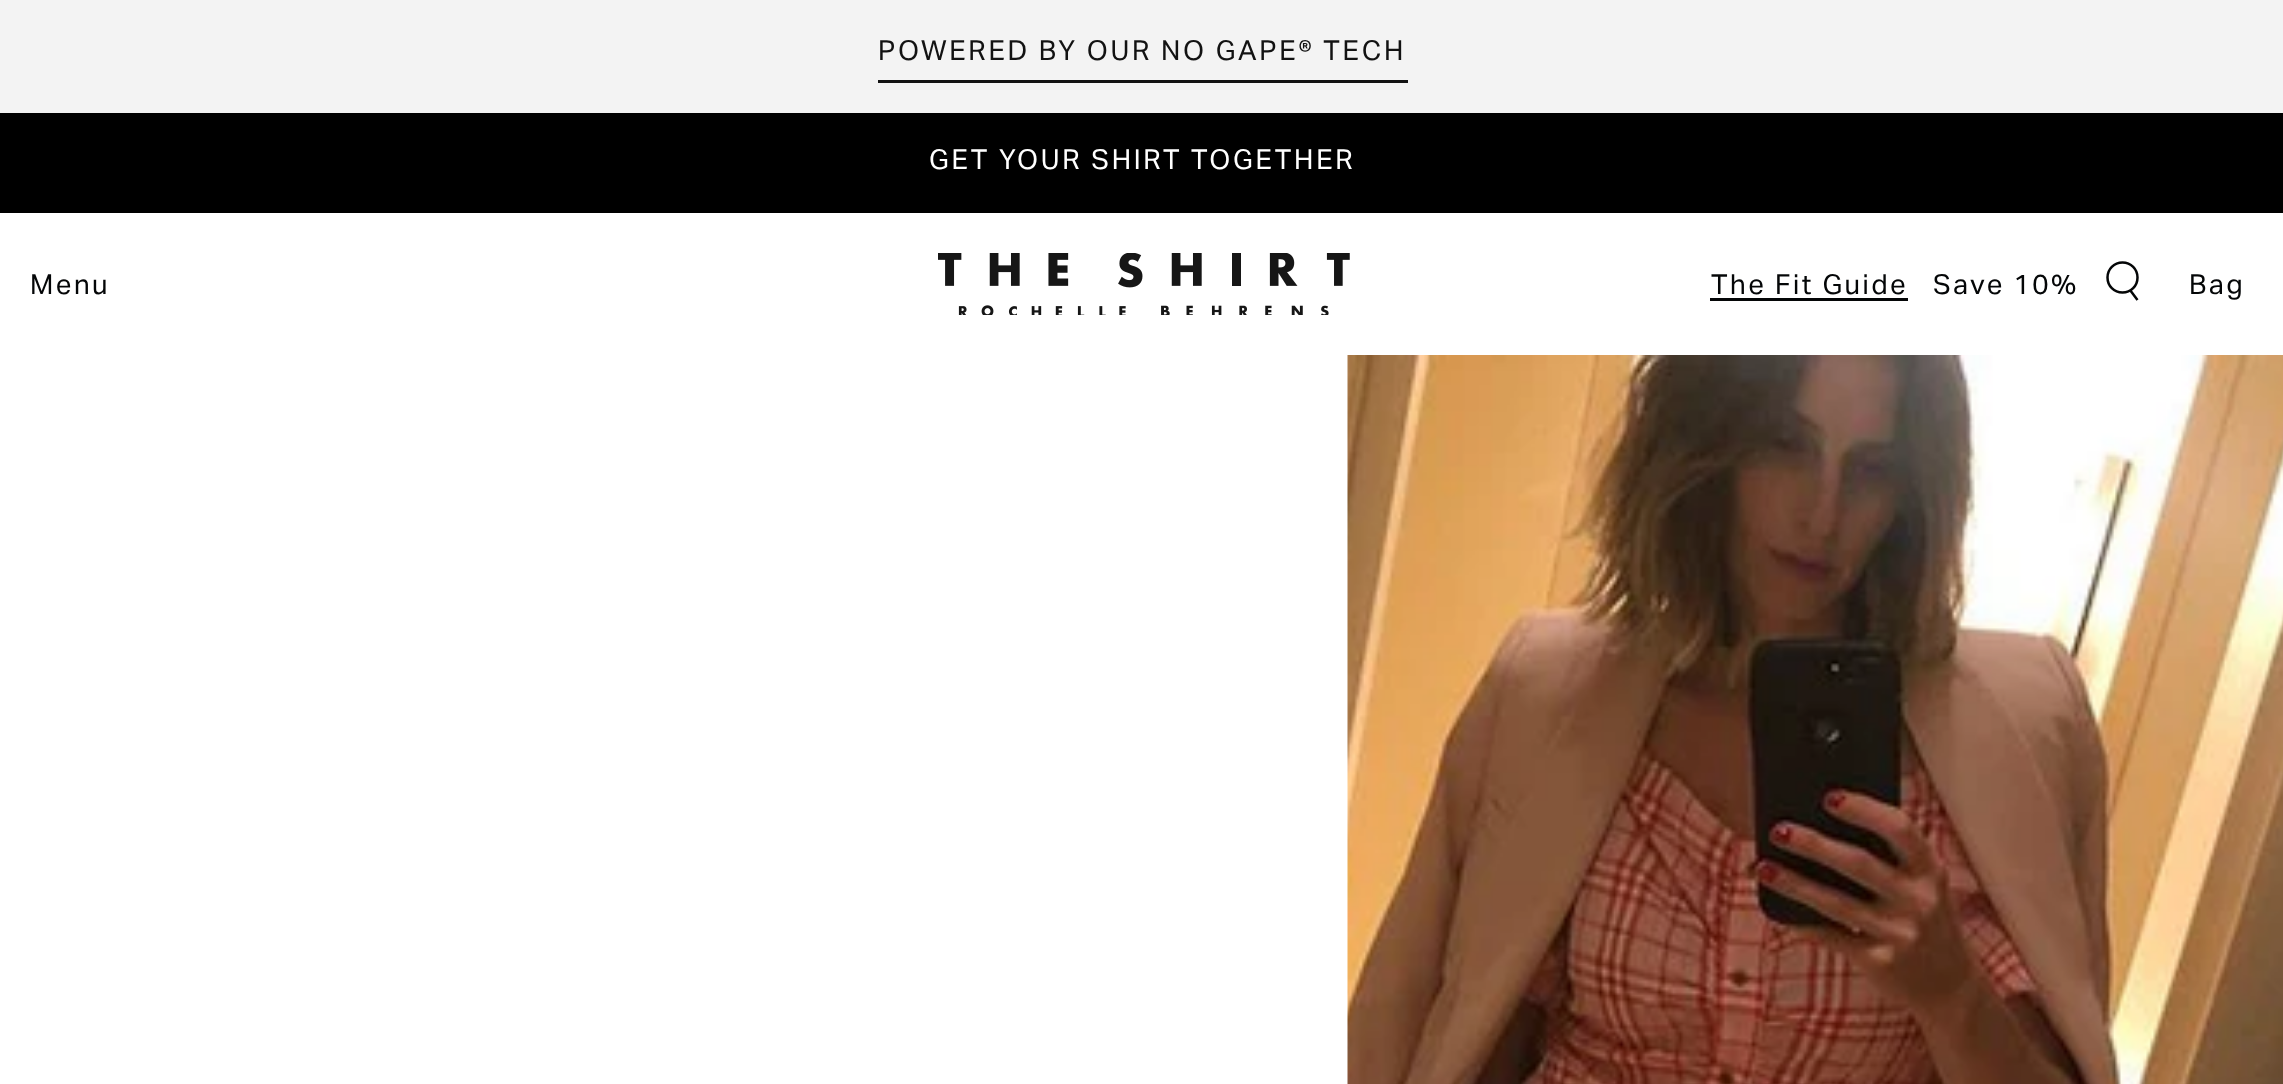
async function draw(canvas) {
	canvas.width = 2283;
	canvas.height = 1084;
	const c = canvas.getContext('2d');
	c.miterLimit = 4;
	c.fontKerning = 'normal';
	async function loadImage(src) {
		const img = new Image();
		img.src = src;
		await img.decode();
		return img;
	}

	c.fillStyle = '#fff';
	c.fillRect(0, 0, 2283, 1084);
	c.fillStyle = '#f3f3f3';
	c.fillRect(0, 0, 2283, 113);
	c.letterSpacing = '2.75px';
	c.font = '27.5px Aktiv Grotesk';
	c.fillStyle = '#121212';
	c.fillText('POWERED BY OUR NO GAPE® TECH', 878, 60);
	c.fillRect(878, 80, 530, 3);
	c.fillStyle = '#000';
	c.fillRect(0, 113, 2283, 100);
	c.fillStyle = '#fff';
	c.fillText('GET YOUR SHIRT TOGETHER', 929, 169);
	c.letterSpacing = '2.5px';
	c.fillStyle = '#040607';
	c.fillText('Menu', 30, 294);
	c.drawImage(await loadImage('img1.png'), 938, 253, 412, 62);
	c.fillText('The Fit Guide', 1711, 294);
	c.fillRect(1710, 298, 198, 3);
	c.fillText('Save 10%', 1933, 294);
	c.beginPath();
	c.moveTo(2122.5, 292.5);
	c.bezierCurveTo(2131, 292.5, 2137.5, 286, 2137.5, 277.5);
	c.bezierCurveTo(2137.5, 269, 2131, 262.5, 2122.5, 262.5);
	c.bezierCurveTo(2114, 262.5, 2107.5, 269, 2107.5, 277.5);
	c.bezierCurveTo(2107.5, 286, 2114, 292.5, 2122.5, 292.5);
	c.closePath();
	c.moveTo(2137.5, 300);
	c.lineTo(2130, 290);
	c.strokeStyle = '#040607';
	c.lineWidth = 2.5;
	c.stroke();
	c.fillText('Bag', 2189, 294);
	c.drawImage(await loadImage('img2.png'), 1347, 355, 936, 729);
}

draw(document.querySelector('canvas'));
